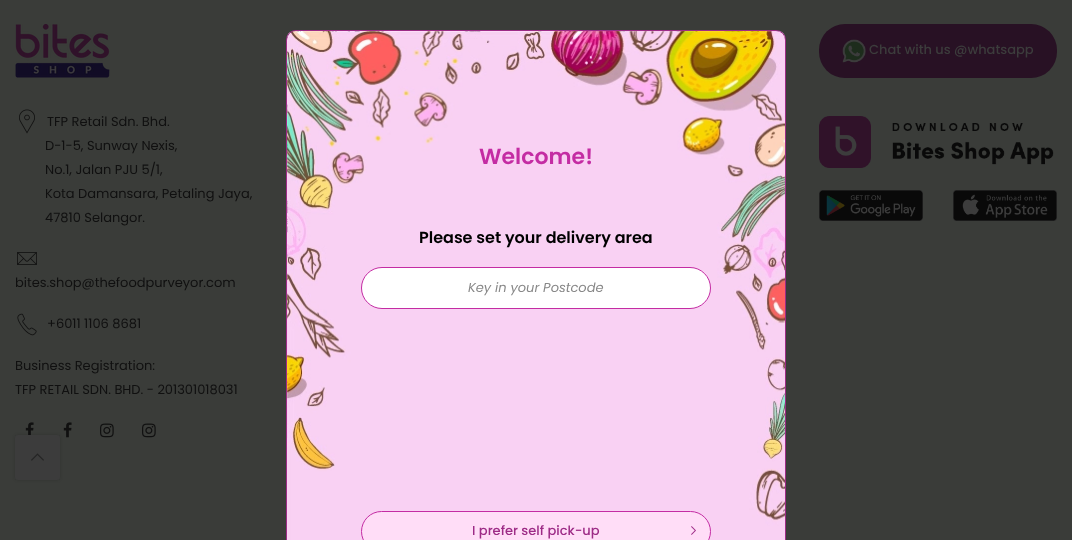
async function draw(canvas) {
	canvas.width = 1072;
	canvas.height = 540;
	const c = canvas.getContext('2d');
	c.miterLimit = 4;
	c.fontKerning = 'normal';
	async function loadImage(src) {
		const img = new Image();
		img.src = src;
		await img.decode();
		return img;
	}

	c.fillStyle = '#3a3c39';
	c.fillRect(0, 0, 1072, 540);
	c.fillStyle = '#281124';
	c.beginPath();
	c.roundRect(819, 24, 238, 54, 26);
	c.fill();
	c.drawImage(await loadImage('img1.png'), 842, 39, 24, 24);
	c.font = '500 13px Poppins';
	c.fillStyle = '#3c3c3c';
	c.fillText('Chat with us @whatsapp', 869, 54);
	c.drawImage(await loadImage('img2.png'), 819, 116, 235, 52);
	c.drawImage(await loadImage('img3.png'), 819, 190, 104, 31);
	c.drawImage(await loadImage('img4.png'), 953, 190, 104, 31);
	c.drawImage(await loadImage('img5.png'), 15, 24, 95, 54);
	c.drawImage(await loadImage('img6.png'), 19, 109, 16, 25);
	c.font = '13px Poppins';
	c.fillStyle = '#101010';
	for (const [text, x, y] of [
		['TFP Retail Sdn. Bhd.', 47, 126],
		['D-1-5, Sunway Nexis,', 45, 150],
		['No.1, Jalan PJU 5/1,', 45, 174],
		['Kota Damansara, Petaling Jaya,', 45, 198],
		['47810 Selangor.', 45, 222],
	]) {
		c.fillText(text, x, y);
	}
	c.drawImage(await loadImage('img7.png'), 17, 252, 20, 13);
	c.fillText('bites.shop@thefoodpurveyor.com', 15, 287);
	c.drawImage(await loadImage('img8.png'), 17, 313, 20, 23);
	for (const [text, x, y] of [
		['+6011 1106 8681', 47, 328],
		['Business Registration:', 15, 370],
		['TFP RETAIL SDN. BHD. - 201301018031', 15, 394],
	]) {
		c.fillText(text, x, y);
	}
	c.drawImage(await loadImage('img9.png'), 25, 422, 9, 13);
	c.drawImage(await loadImage('img10.png'), 63, 422, 9, 16);
	c.drawImage(await loadImage('img11.png'), 100, 423, 14, 15);
	c.drawImage(await loadImage('img11.png'), 142, 423, 14, 15);
	c.fillStyle = '#09090933';
	c.filter = 'blur(1.5px)';
	c.beginPath();
	c.roundRect(15, 435, 45, 45, 3);
	c.fill();
	c.filter = 'none';
	c.fillStyle = '#3c3c3c';
	c.beginPath();
	c.roundRect(15, 435, 45, 45, 3);
	c.fill();
	c.drawImage(await loadImage('img12.png'), 31, 453, 13, 8);
	c.drawImage(await loadImage('img13.png'), 287, 31, 498, 509);
	c.beginPath();
	c.roundRect(286.5, 30.5, 499, 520, 9.5);
	c.strokeStyle = '#9d2b86';
	c.stroke();
	c.font = '600 22px Poppins';
	c.fillStyle = '#c42ca3';
	c.fillText('Welcome!', 479, 164);
	c.font = '600 16px Poppins';
	c.fillStyle = '#000';
	c.fillText('Please set your delivery area', 419, 243);
	c.fillStyle = '#fff';
	c.beginPath();
	c.roundRect(361.5, 267.5, 349, 41, 20.5);
	c.fill();
	c.strokeStyle = '#c42ca3';
	c.stroke();
	c.font = 'italic 13px Poppins';
	c.fillStyle = '#888';
	c.fillText('Key in your Postcode', 468, 292);
	c.fillStyle = '#ffddf7';
	c.beginPath();
	c.roundRect(361.5, 511.5, 349, 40, 20);
	c.fill();
	c.stroke();
	c.font = '500 13px Poppins';
	c.fillStyle = '#9d2b86';
	c.fillText('I prefer self pick-up', 472, 535);
	c.drawImage(await loadImage('img14.png'), 691, 526, 5, 9);
}

draw(document.querySelector('canvas'));
